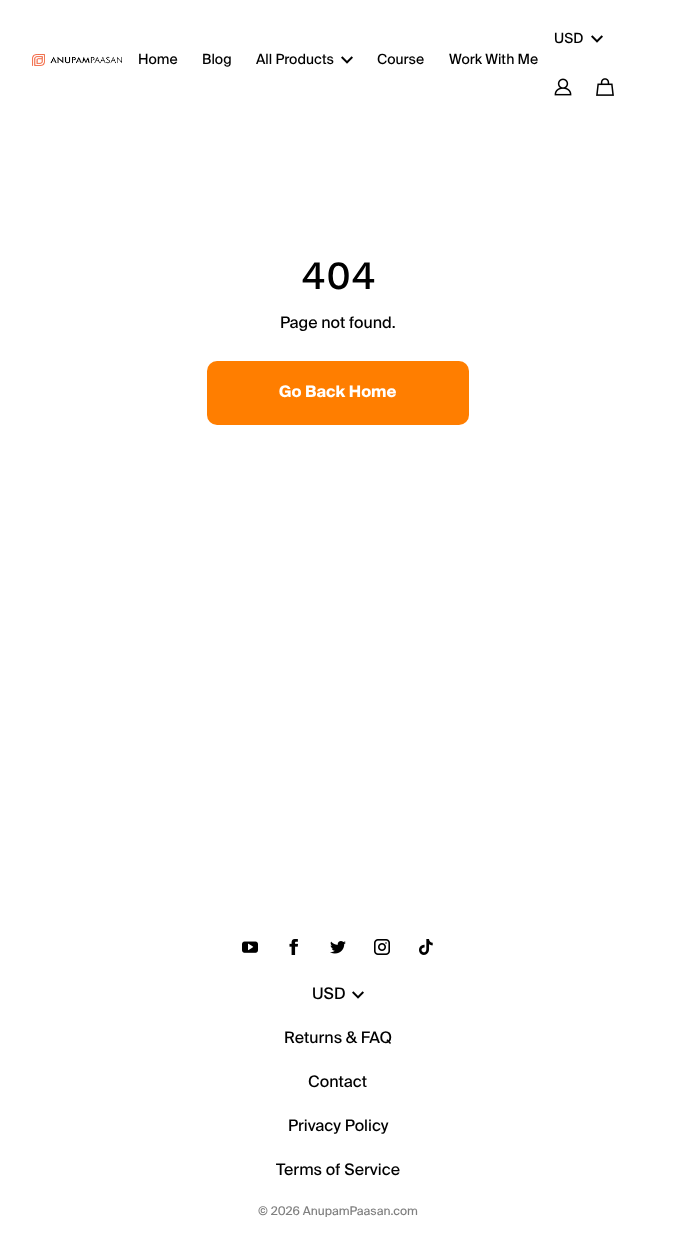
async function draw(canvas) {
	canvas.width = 676;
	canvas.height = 1237;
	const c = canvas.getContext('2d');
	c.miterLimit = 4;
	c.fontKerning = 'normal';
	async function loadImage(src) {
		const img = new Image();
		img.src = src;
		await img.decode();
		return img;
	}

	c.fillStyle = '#fff';
	c.fillRect(0, 0, 676, 1237);
	c.font = '14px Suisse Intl';
	c.fillStyle = '#000';
	c.fillText('USD', 554, 43);
	c.drawImage(await loadImage('img1.png'), 591, 35, 12, 8);
	c.drawImage(await loadImage('img2.png'), 554, 78, 18, 18);
	c.drawImage(await loadImage('img3.png'), 596, 78, 18, 18);
	c.drawImage(await loadImage('img4.png'), 32, 54, 90, 12);
	for (const [text, x, y] of [
		['Home', 138, 64],
		['Blog', 202, 64],
		['All Products', 256, 64],
	]) {
		c.fillText(text, x, y);
	}
	c.drawImage(await loadImage('img1.png'), 341, 56, 12, 8);
	c.fillText('Course', 377, 64);
	c.fillText('Work With Me', 449, 64);
	c.font = '500 40px Work Sans';
	c.fillText('404', 301, 289);
	c.font = '16px Suisse Intl';
	c.fillText('Page not found.', 280, 328);
	c.fillStyle = '#ff7e00';
	c.beginPath();
	c.roundRect(207, 361, 262, 64, 10);
	c.fill();
	c.font = 'bold 16px Suisse Intl';
	c.fillStyle = '#fff';
	c.fillText('Go Back Home', 279, 397);
	c.drawImage(await loadImage('img5.png'), 242, 941, 16, 12);
	c.drawImage(await loadImage('img6.png'), 289, 939, 9, 16);
	c.drawImage(await loadImage('img7.png'), 330, 941, 16, 13);
	c.drawImage(await loadImage('img8.png'), 374, 939, 16, 16);
	c.drawImage(await loadImage('img9.png'), 419, 939, 14, 16);
	c.font = '16px Suisse Intl';
	c.fillStyle = '#000';
	c.fillText('USD', 312, 999);
	c.drawImage(await loadImage('img1.png'), 352, 991, 12, 8);
	for (const [text, x, y] of [
		['Returns & FAQ', 284, 1043],
		['Contact', 308, 1087],
		['Privacy Policy', 288, 1131],
		['Terms of Service', 276, 1175],
	]) {
		c.fillText(text, x, y);
	}
	c.font = '12px Suisse Intl';
	c.fillStyle = '#808080';
	c.fillText('© 2026 AnupamPaasan.com', 258, 1215);
}

draw(document.querySelector('canvas'));
